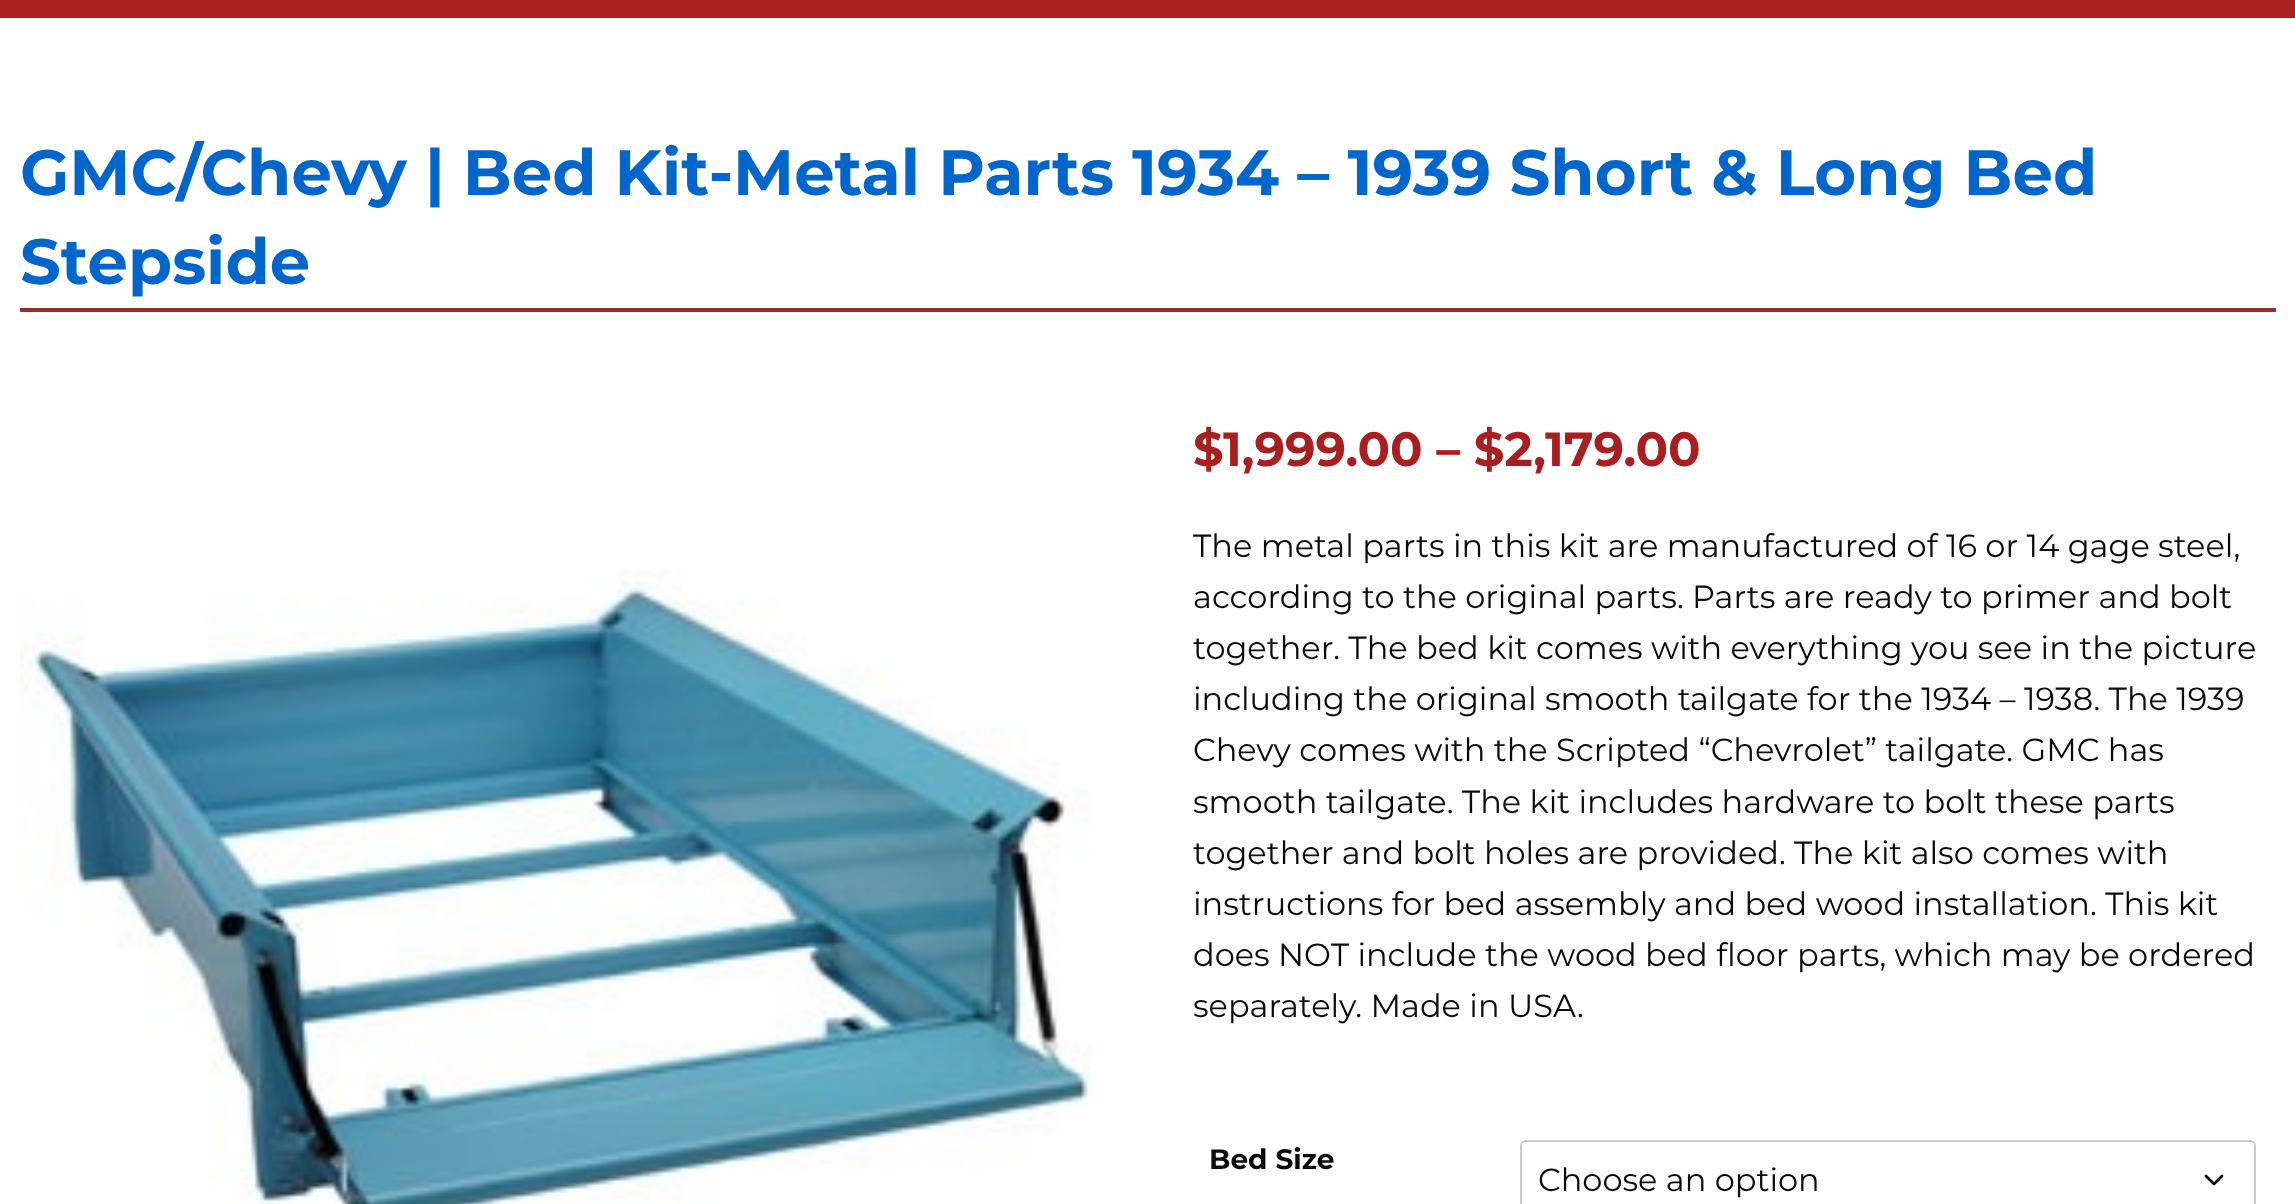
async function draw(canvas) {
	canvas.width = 2295;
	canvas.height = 1204;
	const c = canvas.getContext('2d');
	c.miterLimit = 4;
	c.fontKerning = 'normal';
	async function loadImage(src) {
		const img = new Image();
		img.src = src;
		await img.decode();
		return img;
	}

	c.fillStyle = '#fff';
	c.fillRect(0, 0, 2295, 1204);
	c.fillStyle = '#a91f1f';
	c.fillRect(0, 0, 2295, 18);
	c.fillStyle = '#982b2a';
	c.fillRect(20, 308, 2256, 4);
	c.font = 'bold 64px Montserrat';
	c.fillStyle = '#06c';
	c.fillText('GMC/Chevy | Bed Kit-Metal Parts 1934 – 1939 Short & Long Bed', 20, 195);
	c.fillText('Stepside', 20, 284);
	c.drawImage(await loadImage('img1.png'), 20, 569, 1072, 635);
	c.font = 'bold 48px Montserrat';
	c.fillStyle = '#a91f1f';
	c.fillText('$', 1193, 466);
	c.fillText('1,999.00 – $2,179.00', 1223, 466);
	c.font = '32px Montserrat';
	c.fillStyle = '#0a0a0a';
	for (const [text, x, y] of [
		['The metal parts in this kit are manufactured of 16 or 14 gage steel,', 1193, 557],
		['according to the original parts. Parts are ready to primer and bolt', 1193, 608],
		['together. The bed kit comes with everything you see in the picture', 1193, 659],
		['including the original smooth tailgate for the 1934 – 1938. The 1939', 1193, 710],
		['Chevy comes with the Scripted “Chevrolet” tailgate. GMC has', 1193, 761],
		['smooth tailgate. The kit includes hardware to bolt these parts', 1193, 813],
		['together and bolt holes are provided. The kit also comes with', 1193, 864],
		['instructions for bed assembly and bed wood installation. This kit', 1193, 915],
		['does NOT include the wood bed floor parts, which may be ordered', 1193, 966],
		['separately. Made in USA.', 1193, 1017],
	]) {
		c.fillText(text, x, y);
	}
	c.font = 'bold 28px Montserrat';
	c.fillText('Bed Size', 1209, 1169);
	c.beginPath();
	c.moveTo(2206, 1176);
	c.lineTo(2214, 1184);
	c.lineTo(2222, 1176);
	c.strokeStyle = '#000';
	c.lineWidth = 2.7;
	c.lineCap = 'round';
	c.lineJoin = 'round';
	c.stroke();
	c.beginPath();
	c.roundRect(1521, 1141, 734, 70, 5);
	c.strokeStyle = '#cacaca';
	c.lineWidth = 2;
	c.lineJoin = 'miter';
	c.stroke();
	c.font = '32px Montserrat';
	c.fillText('Choose an option', 1538, 1191);
}

draw(document.querySelector('canvas'));
